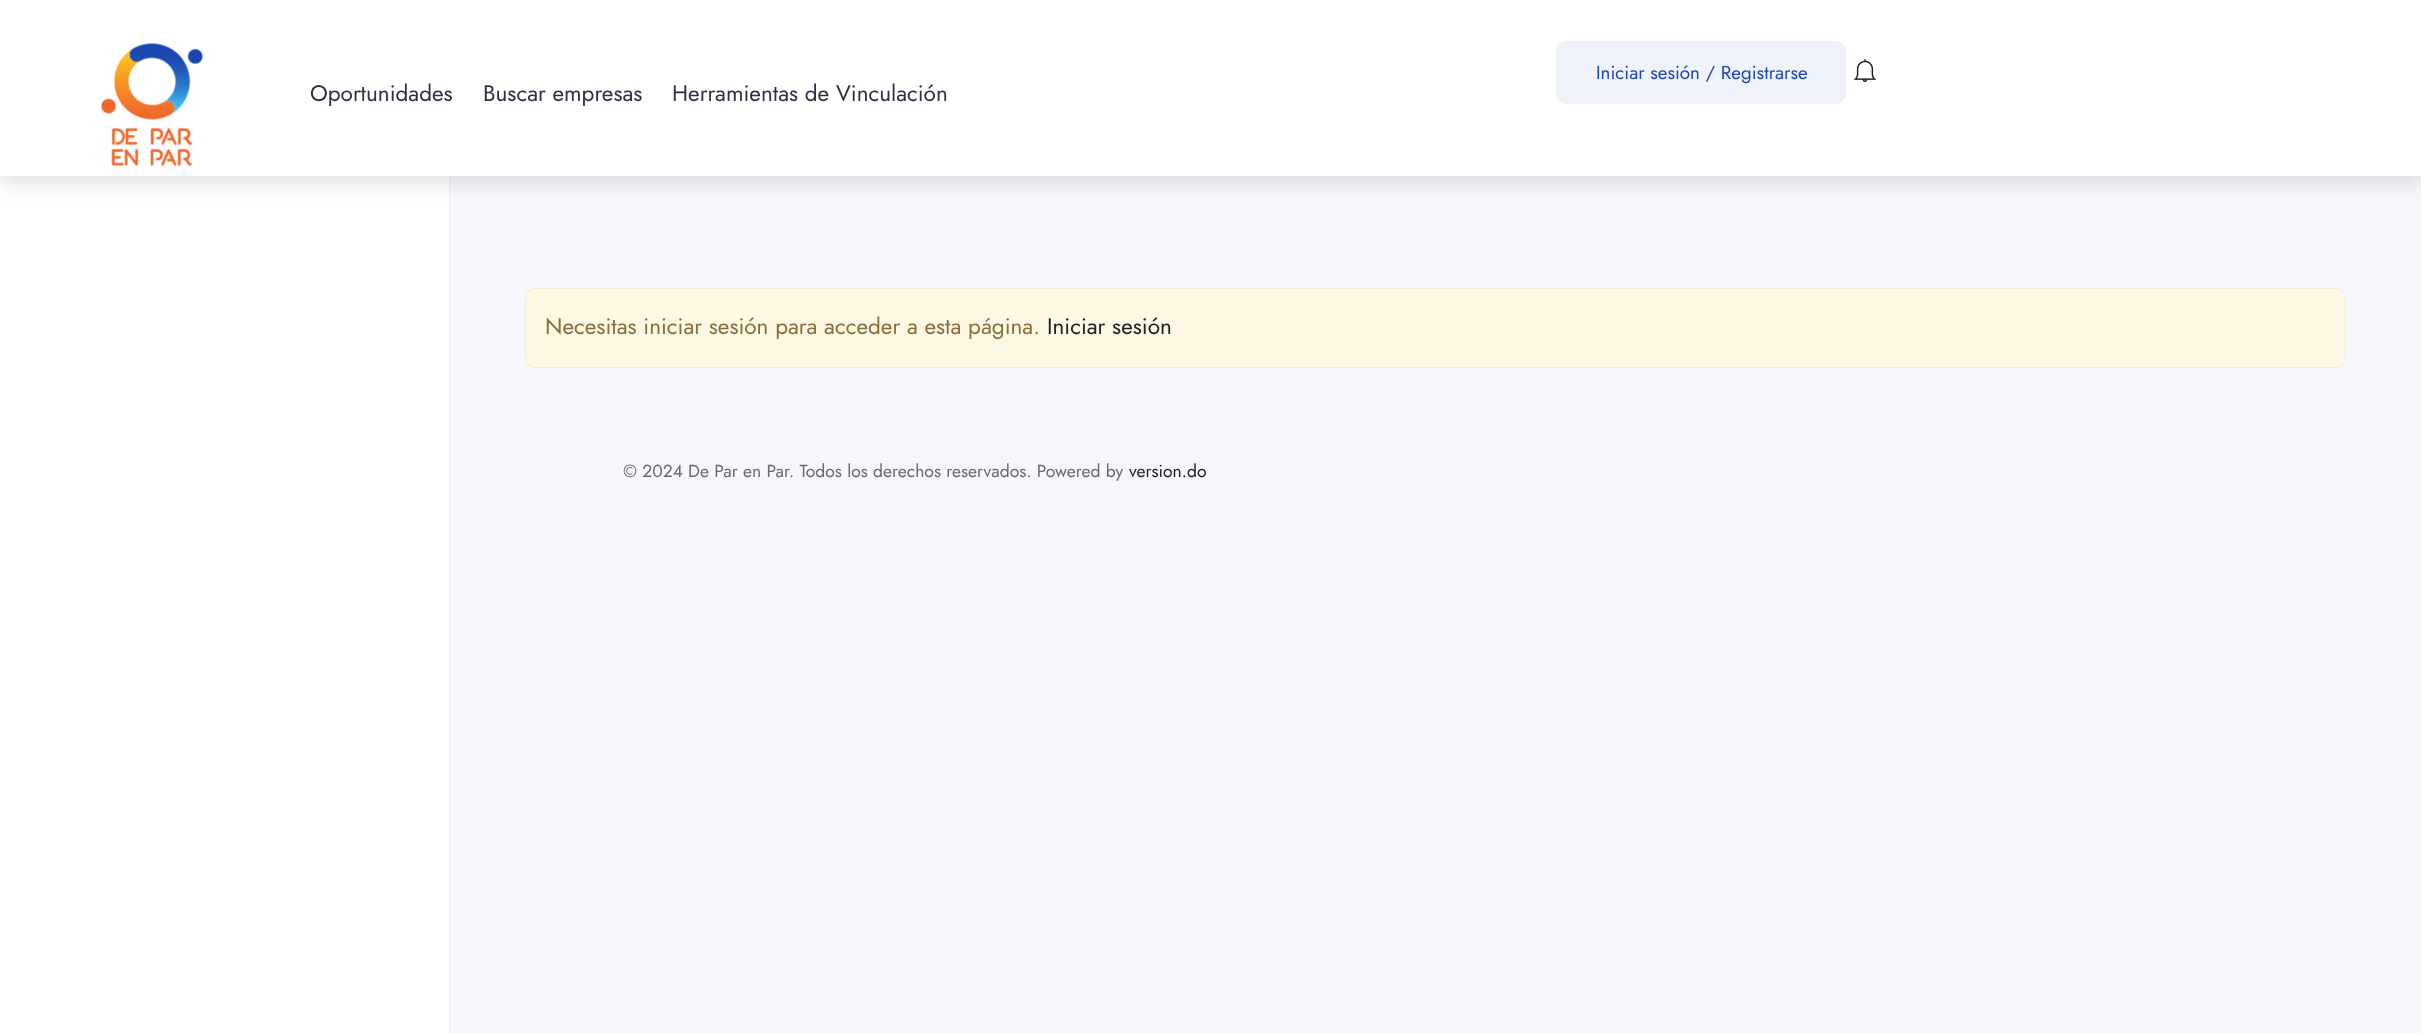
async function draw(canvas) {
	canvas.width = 2421;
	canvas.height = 1033;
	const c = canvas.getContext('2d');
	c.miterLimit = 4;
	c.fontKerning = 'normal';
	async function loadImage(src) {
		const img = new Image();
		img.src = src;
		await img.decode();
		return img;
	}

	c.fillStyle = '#f5f7fc';
	c.fillRect(0, 0, 2421, 1033);
	c.fillStyle = '#fff';
	c.fillRect(0, 176, 449, 857);
	c.fillStyle = '#ecedf2';
	c.fillRect(449, 176, 1, 857);
	c.fillStyle = '#0000001c';
	c.filter = 'blur(9.5px)';
	c.beginPath();
	c.rect(0, 8, 2421, 176);
	c.fill();
	c.filter = 'none';
	c.fillStyle = '#fff';
	c.fillRect(0, 0, 2421, 176);
	c.drawImage(await loadImage('img1.png'), 100, 43, 103, 124);
	c.fillStyle = '#eff2f9';
	c.beginPath();
	c.roundRect(1556, 41, 290, 63, 10);
	c.fill();
	c.font = '18.75px Jost';
	c.fillStyle = '#1b46ae';
	c.fillText('Iniciar sesión / Registrarse', 1596, 79);
	c.drawImage(await loadImage('img2.png'), 1853, 59, 24, 23);
	c.font = '22.5px Jost';
	c.fillStyle = '#2a3142';
	for (const [text, x, y] of [
		['Oportunidades', 310, 101],
		['Buscar empresas', 483, 101],
		['Herramientas de Vinculación', 672, 101],
	]) {
		c.fillText(text, x, y);
	}
	c.fillStyle = '#fcf8e3';
	c.beginPath();
	c.roundRect(525.5, 288.5, 1820, 79, 9.5);
	c.fill();
	c.strokeStyle = '#faebcc';
	c.stroke();
	c.fillStyle = '#8a6d3b';
	c.fillText('Necesitas iniciar sesión para acceder a esta página.', 545, 334);
	c.fillStyle = '#202124';
	c.fillText('Iniciar sesión', 1047, 334);
	c.font = '17.5px Jost';
	c.fillStyle = '#696969';
	c.fillText('© 2024 De Par en Par. Todos los derechos reservados. Powered by', 623, 477);
	c.fillStyle = '#202124';
	c.fillText('version.do', 1129, 477);
}

draw(document.querySelector('canvas'));
